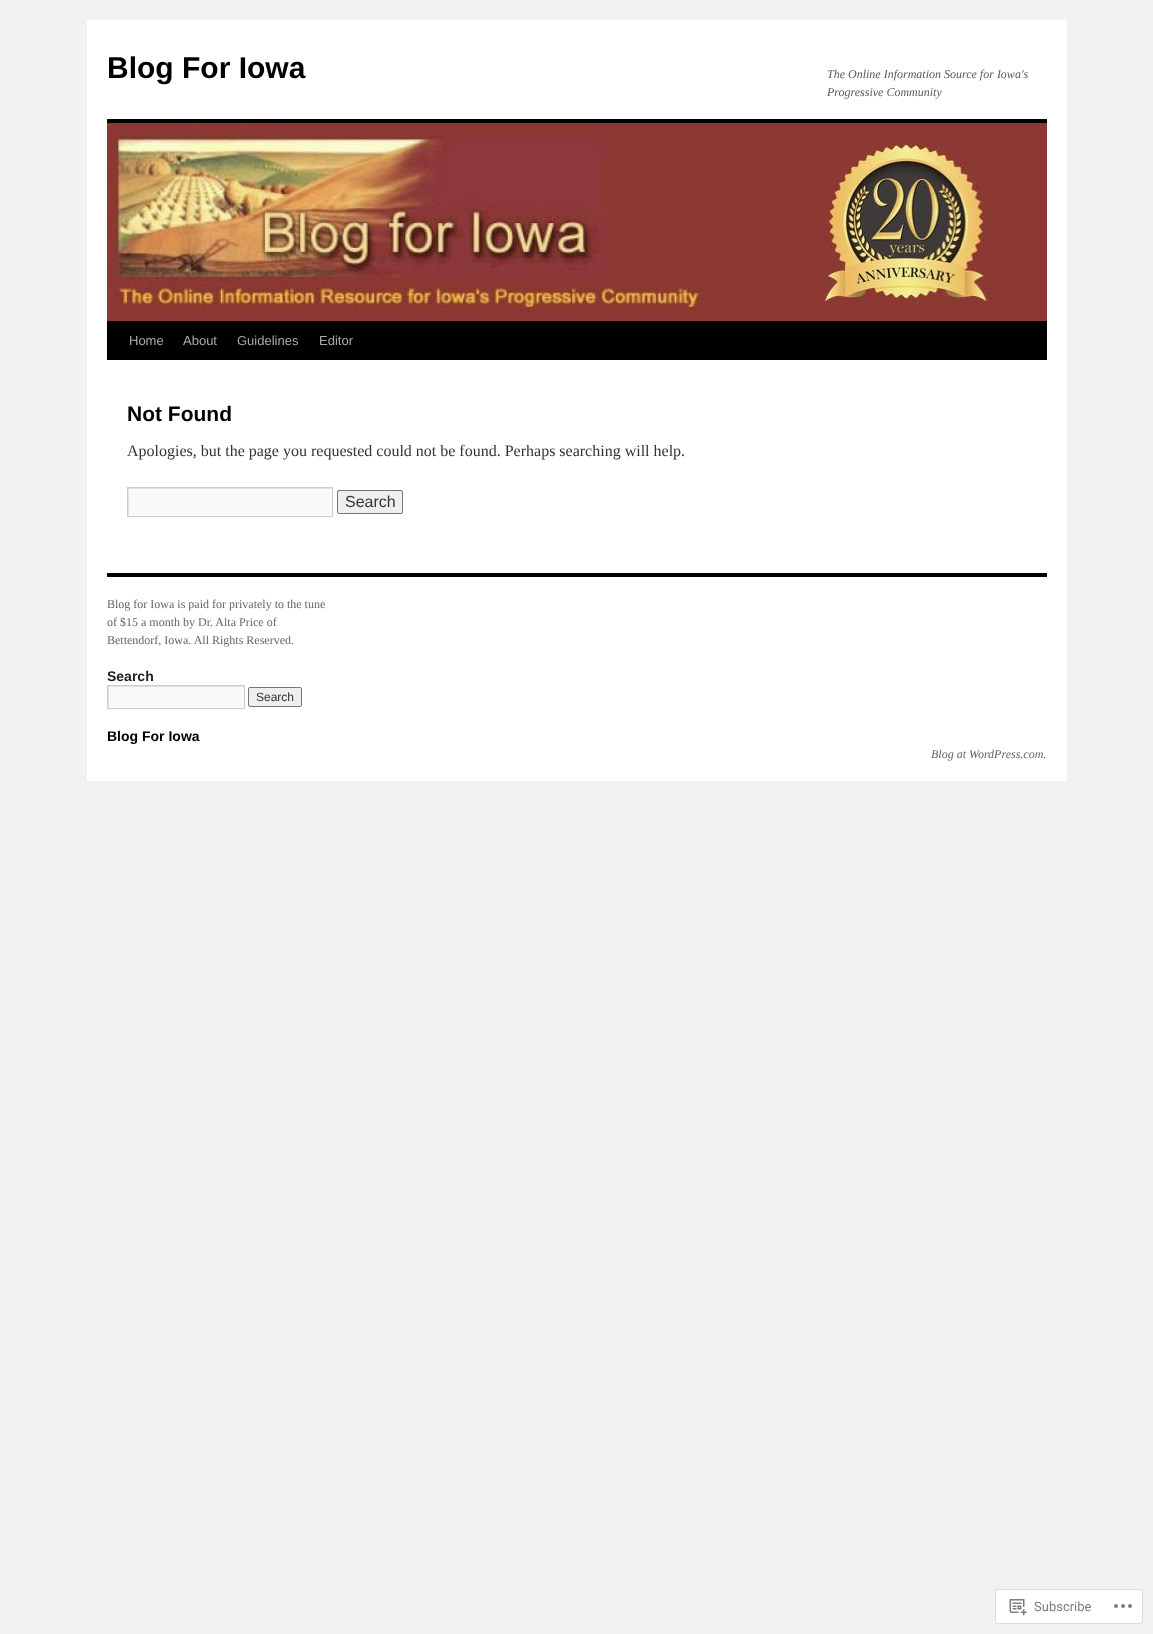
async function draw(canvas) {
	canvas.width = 1153;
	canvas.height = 1634;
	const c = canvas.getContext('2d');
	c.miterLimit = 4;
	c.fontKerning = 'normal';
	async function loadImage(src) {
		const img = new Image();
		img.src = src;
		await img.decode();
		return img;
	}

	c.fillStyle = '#f1f1f1';
	c.fillRect(0, 0, 1153, 1634);
	c.fillStyle = '#fff';
	c.fillRect(87, 20, 980, 761);
	c.font = 'bold 30px Liberation Sans';
	c.fillStyle = '#000';
	c.fillText('Blog For Iowa', 107, 78);
	c.font = 'italic 12px Liberation Serif';
	c.fillStyle = '#595959';
	c.fillText('The Online Information Source for Iowa\'s', 827, 78);
	c.fillText('Progressive Community', 827, 96);
	c.fillStyle = '#000';
	c.fillRect(107, 119, 940, 4);
	c.fillRect(107, 321, 940, 39);
	c.drawImage(await loadImage('img1.png'), 107, 123, 940, 198);
	c.font = '13px Liberation Sans';
	c.fillStyle = '#aaa';
	for (const [text, x, y] of [
		['Home', 129, 345],
		['About', 183, 345],
		['Guidelines', 237, 345],
		['Editor', 319, 345],
	]) {
		c.fillText(text, x, y);
	}
	c.font = 'bold 21px Liberation Sans';
	c.fillStyle = '#000';
	c.fillText('Not Found', 127, 421);
	c.font = '16px Liberation Serif';
	c.fillStyle = '#333';
	c.fillText('Apologies, but the page you requested could not be found. Perhaps searching will help.', 127, 456);
	c.fillStyle = '#f9f9f9';
	c.fillRect(129, 489, 203, 27);
	c.save();
	c.beginPath();
	c.rect(128, 488, 204, 28);
	c.clip();
	c.fillStyle = '#e0e0e0';
	c.beginPath();
	c.moveTo(29, 389);
	c.lineTo(431, 389);
	c.lineTo(431, 615);
	c.lineTo(29, 615);
	c.closePath();
	c.moveTo(129, 489);
	c.lineTo(333, 489);
	c.lineTo(333, 517);
	c.lineTo(129, 517);
	c.closePath();
	c.fill('evenodd');
	c.restore();
	c.strokeStyle = '#ccc';
	c.strokeRect(127.5, 487.5, 205, 29);
	c.fillStyle = '#efefef';
	c.beginPath();
	c.roundRect(337.5, 490.5, 65, 23, 1.5);
	c.fill();
	c.strokeStyle = '#767676';
	c.stroke();
	c.font = '16px Liberation Sans';
	c.fillStyle = '#333';
	c.fillText('Search', 345, 507);
	c.fillStyle = '#000';
	c.fillRect(107, 573, 940, 4);
	c.font = '12px Liberation Serif';
	c.fillStyle = '#666';
	for (const [text, x, y] of [
		['Blog for Iowa is paid for privately to the tune', 107, 608],
		['of $15 a month by Dr. Alta Price of', 107, 626],
		['Bettendorf, Iowa. All Rights Reserved.', 107, 644],
	]) {
		c.fillText(text, x, y);
	}
	c.font = 'bold 14px Liberation Sans';
	c.fillStyle = '#222';
	c.fillText('Search', 107, 681);
	c.fillStyle = '#f9f9f9';
	c.fillRect(109, 687, 135, 21);
	c.save();
	c.beginPath();
	c.rect(108, 686, 136, 22);
	c.clip();
	c.fillStyle = '#e0e0e0';
	c.beginPath();
	c.moveTo(9, 587);
	c.lineTo(343, 587);
	c.lineTo(343, 807);
	c.lineTo(9, 807);
	c.closePath();
	c.moveTo(109, 687);
	c.lineTo(245, 687);
	c.lineTo(245, 709);
	c.lineTo(109, 709);
	c.closePath();
	c.fill('evenodd');
	c.restore();
	c.strokeStyle = '#ccc';
	c.strokeRect(107.5, 685.5, 137, 23);
	c.fillStyle = '#efefef';
	c.beginPath();
	c.roundRect(248.5, 687.5, 53, 19, 1.5);
	c.fill();
	c.strokeStyle = '#767676';
	c.stroke();
	c.font = '12px Liberation Sans';
	c.fillStyle = '#333';
	c.fillText('Search', 256, 701);
	c.font = 'bold 14px Liberation Sans';
	c.fillStyle = '#000';
	c.fillText('Blog For Iowa', 107, 741);
	c.font = 'italic 12px Liberation Serif';
	c.fillStyle = '#666';
	c.fillText('Blog at WordPress.com.', 931, 758);
	c.fillStyle = '#fff';
	c.beginPath();
	c.roundRect(995.5, 1589.5, 147, 34, 2.5);
	c.fill();
	c.strokeStyle = '#dcdcde';
	c.stroke();
	c.drawImage(await loadImage('img2.png'), 1009, 1599, 18, 17);
	c.font = '13px Roboto';
	c.fillStyle = '#7a7e84';
	c.fillText('Subscribe', 1034, 1611);
	c.drawImage(await loadImage('img3.png'), 1114, 1604, 18, 4);
}

draw(document.querySelector('canvas'));
